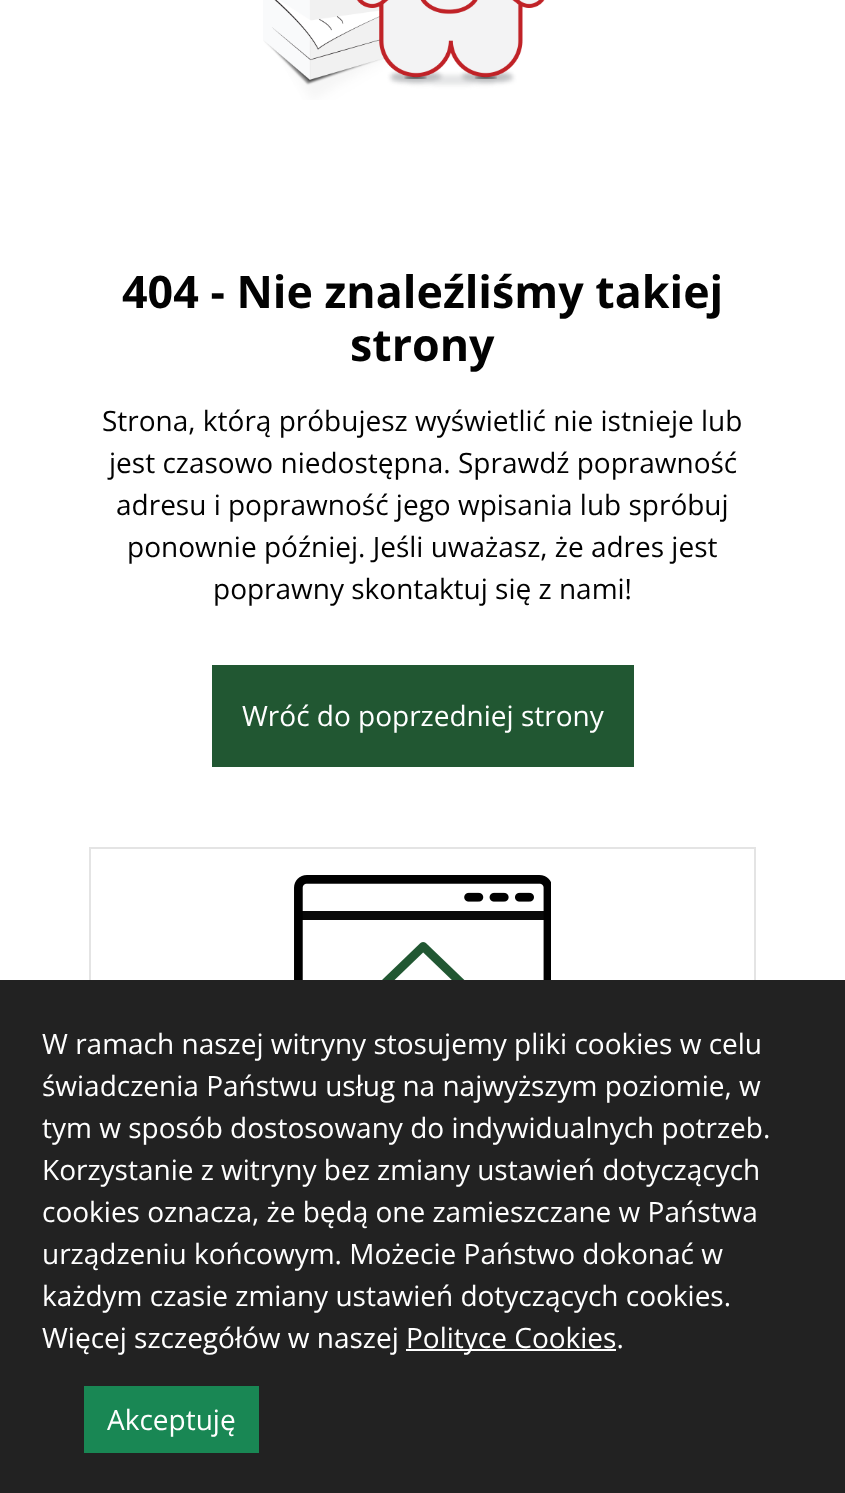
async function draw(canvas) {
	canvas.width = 845;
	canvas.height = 1493;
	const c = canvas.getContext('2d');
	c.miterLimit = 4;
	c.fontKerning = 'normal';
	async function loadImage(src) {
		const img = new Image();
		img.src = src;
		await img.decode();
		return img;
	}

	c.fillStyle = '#fff';
	c.fillRect(0, 0, 845, 1493);
	c.drawImage(await loadImage('img1.png'), 263, 0, 282, 100);
	c.font = 'bold 44.75px Open Sans';
	c.fillStyle = '#020202';
	c.fillText('404 - Nie znaleźliśmy takiej', 122, 308);
	c.fillText('strony', 350, 361);
	c.font = '28px Open Sans';
	for (const [text, x, y] of [
		['Strona, którą próbujesz wyświetlić nie istnieje lub', 102, 431],
		['jest czasowo niedostępna. Sprawdź poprawność', 109, 473],
		['adresu i poprawność jego wpisania lub spróbuj', 116, 515],
		['ponownie później. Jeśli uważasz, że adres jest', 127, 557],
		['poprawny skontaktuj się z nami!', 213, 599],
	]) {
		c.fillText(text, x, y);
	}
	c.fillStyle = '#215732';
	c.fillRect(212, 665, 422, 102);
	c.fillStyle = '#fff';
	c.fillText('Wróć do poprzedniej strony', 242, 726);
	c.strokeStyle = '#e4e4e4';
	c.lineWidth = 2;
	c.strokeRect(90, 848, 665, 383);
	c.drawImage(await loadImage('img2.png'), 294, 875, 257, 105);
	c.fillStyle = '#222';
	c.fillRect(0, 980, 845, 513);
	c.fillStyle = '#fff';
	for (const [text, x, y] of [
		['W ramach naszej witryny stosujemy pliki cookies w celu', 42, 1054],
		['świadczenia Państwu usług na najwyższym poziomie, w', 42, 1096],
		['tym w sposób dostosowany do indywidualnych potrzeb.', 42, 1138],
		['Korzystanie z witryny bez zmiany ustawień dotyczących', 42, 1180],
		['cookies oznacza, że będą one zamieszczane w Państwa', 42, 1222],
		['urządzeniu końcowym. Możecie Państwo dokonać w', 42, 1264],
		['każdym czasie zmiany ustawień dotyczących cookies.', 42, 1306],
		['Więcej szczegółów w naszej', 42, 1348],
	]) {
		c.fillText(text, x, y);
	}
	c.fillRect(406, 1349, 210, 2);
	c.fillText('Polityce Cookies.', 406, 1348);
	c.fillStyle = '#198754';
	c.fillRect(84, 1386, 175, 67);
	c.fillStyle = '#fff';
	c.fillText('Akceptuję', 107, 1430);
}

draw(document.querySelector('canvas'));
